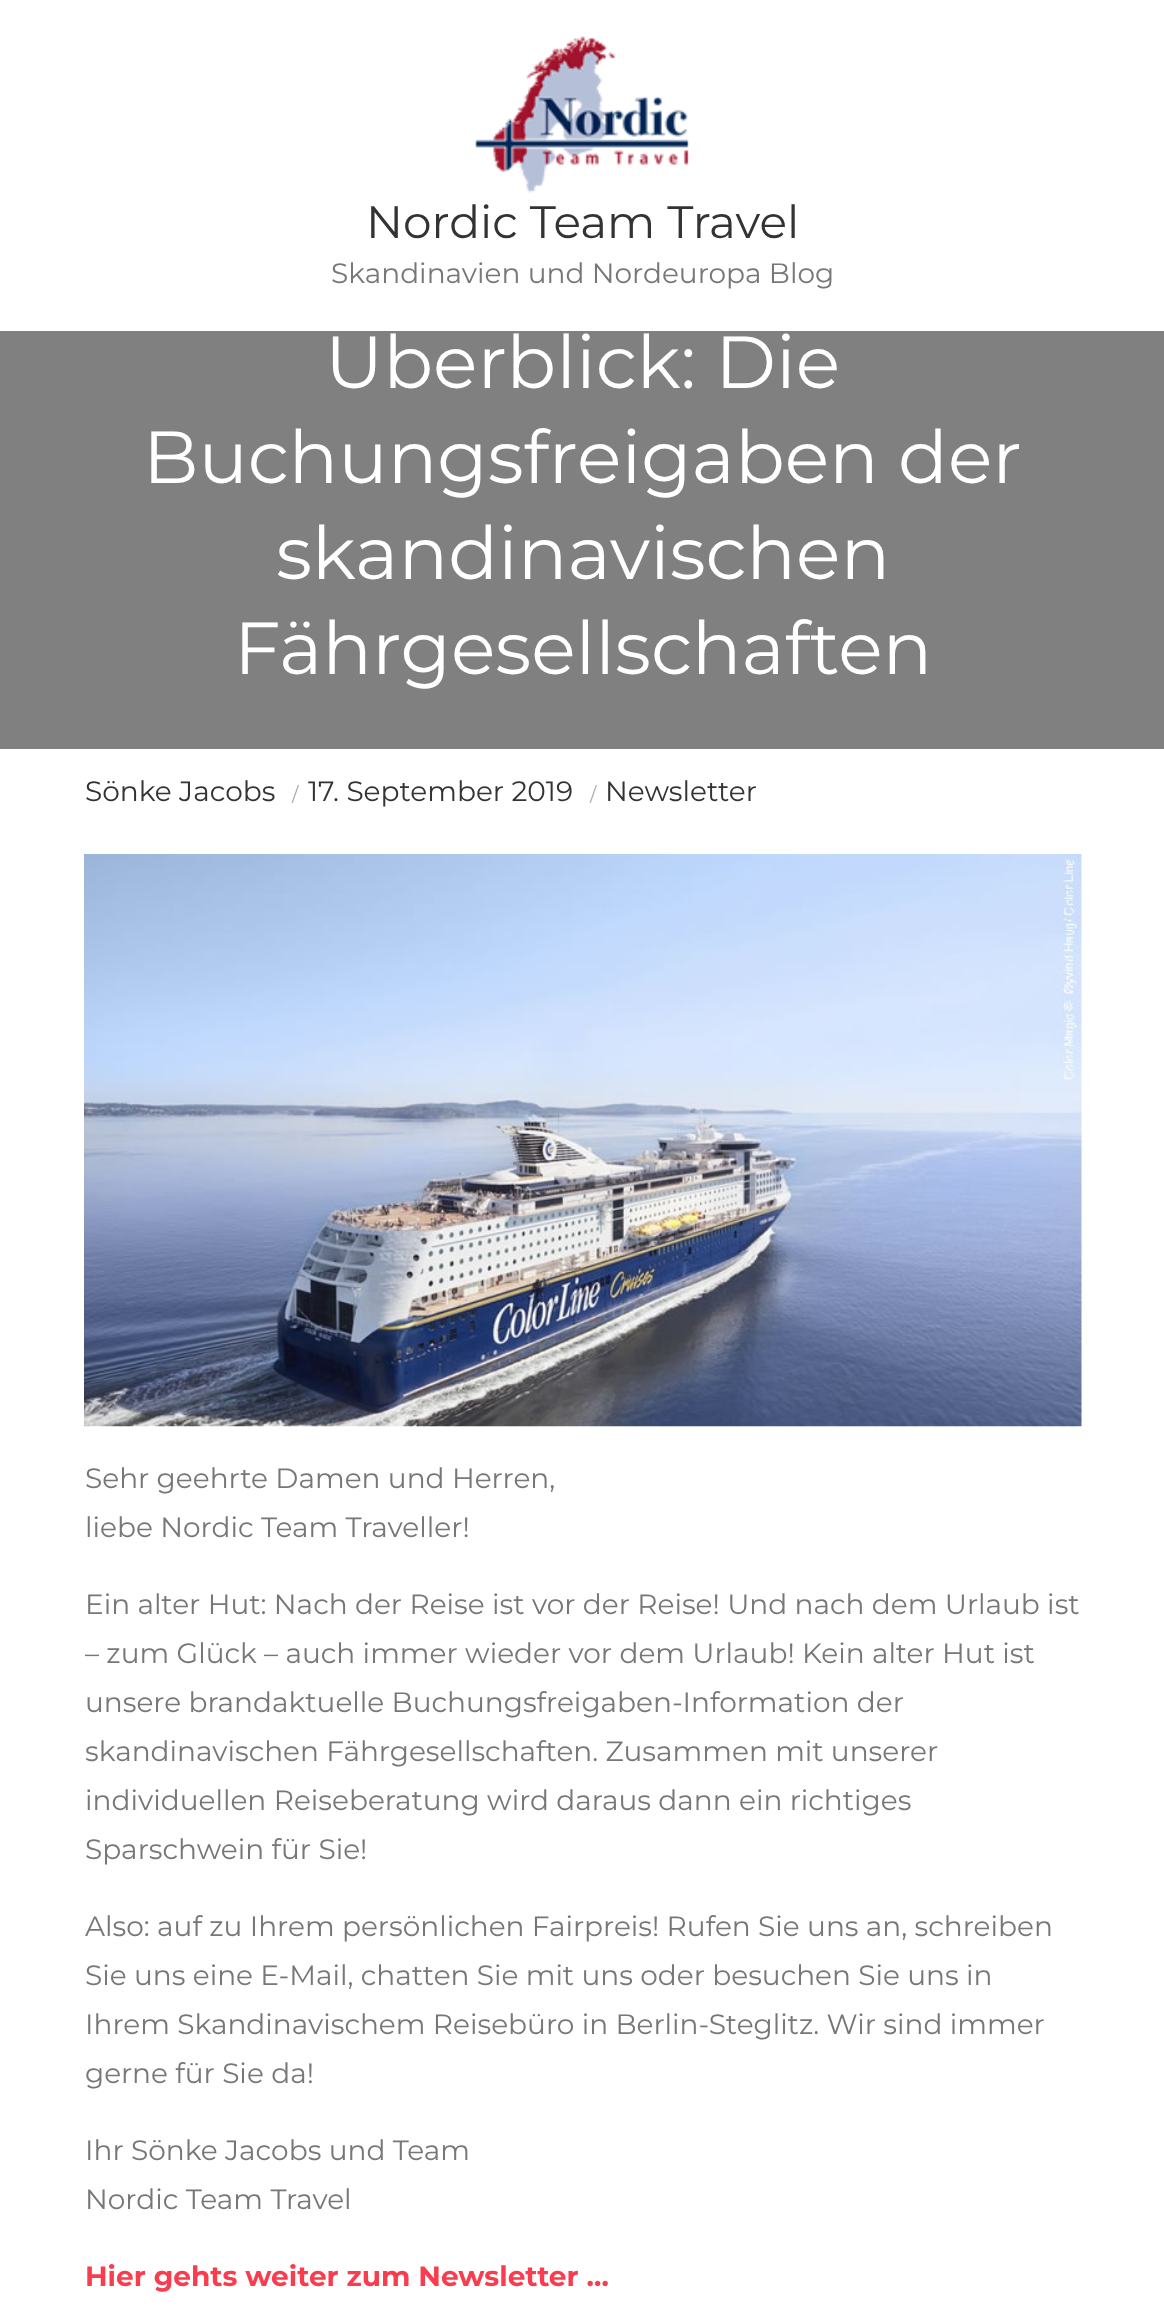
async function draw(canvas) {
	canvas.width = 1164;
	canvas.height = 2324;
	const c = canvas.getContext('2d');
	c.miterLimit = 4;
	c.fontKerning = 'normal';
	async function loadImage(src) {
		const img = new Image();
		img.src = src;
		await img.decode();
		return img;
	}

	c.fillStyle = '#fff';
	c.fillRect(0, 0, 1164, 2324);
	c.drawImage(await loadImage('img1.png'), 475, 36, 214, 157);
	c.font = '45.5px Montserrat';
	c.fillStyle = '#333';
	c.fillText('Nordic Team Travel', 366, 238);
	c.font = '28px Montserrat';
	c.fillStyle = '#777';
	c.fillText('Skandinavien und Nordeuropa Blog', 331, 283);
	c.fillStyle = '#808080';
	c.fillRect(0, 331, 1164, 418);
	c.font = '73.5px Montserrat';
	c.fillStyle = '#fff';
	for (const [text, x, y] of [
		['Überblick: Die', 325, 388],
		['Buchungsfreigaben der', 143, 483],
		['skandinavischen', 276, 579],
		['Fährgesellschaften', 234, 674],
	]) {
		c.fillText(text, x, y);
	}
	c.font = '28px Montserrat';
	c.fillStyle = '#333';
	c.fillText('Sönke Jacobs', 85, 801);
	c.font = '19px Montserrat';
	c.fillStyle = '#aaa';
	c.fillText('/', 292, 801);
	c.font = '28px Montserrat';
	c.fillStyle = '#333';
	c.fillText('17. September 2019', 308, 801);
	c.font = '19px Montserrat';
	c.fillStyle = '#aaa';
	c.fillText('/', 590, 801);
	c.font = '28px Montserrat';
	c.fillStyle = '#333';
	c.fillText('Newsletter', 605, 801);
	c.drawImage(await loadImage('img2.png'), 84, 854, 998, 573);
	c.fillStyle = '#777';
	for (const [text, x, y] of [
		['Sehr geehrte Damen und Herren,', 85, 1488],
		['liebe Nordic Team Traveller!', 85, 1537],
		['Ein alter Hut: Nach der Reise ist vor der Reise! Und nach dem Urlaub ist', 85, 1614],
		['– zum Glück – auch immer wieder vor dem Urlaub! Kein alter Hut ist', 85, 1663],
		['unsere brandaktuelle Buchungsfreigaben-Information der', 85, 1712],
		['skandinavischen Fährgesellschaften. Zusammen mit unserer', 85, 1761],
		['individuellen Reiseberatung wird daraus dann ein richtiges', 85, 1810],
		['Sparschwein für Sie!', 85, 1859],
		['Also: auf zu Ihrem persönlichen Fairpreis! Rufen Sie uns an, schreiben', 85, 1936],
		['Sie uns eine E-Mail, chatten Sie mit uns oder besuchen Sie uns in', 85, 1985],
		['Ihrem Skandinavischem Reisebüro in Berlin-Steglitz. Wir sind immer', 85, 2034],
		['gerne für Sie da!', 85, 2083],
		['Ihr Sönke Jacobs und Team', 85, 2160],
		['Nordic Team Travel', 85, 2209],
	]) {
		c.fillText(text, x, y);
	}
	c.font = 'bold 28px Montserrat';
	c.fillStyle = '#f93d4e';
	c.fillText('Hier gehts weiter zum Newsletter …', 85, 2286);
}

draw(document.querySelector('canvas'));
